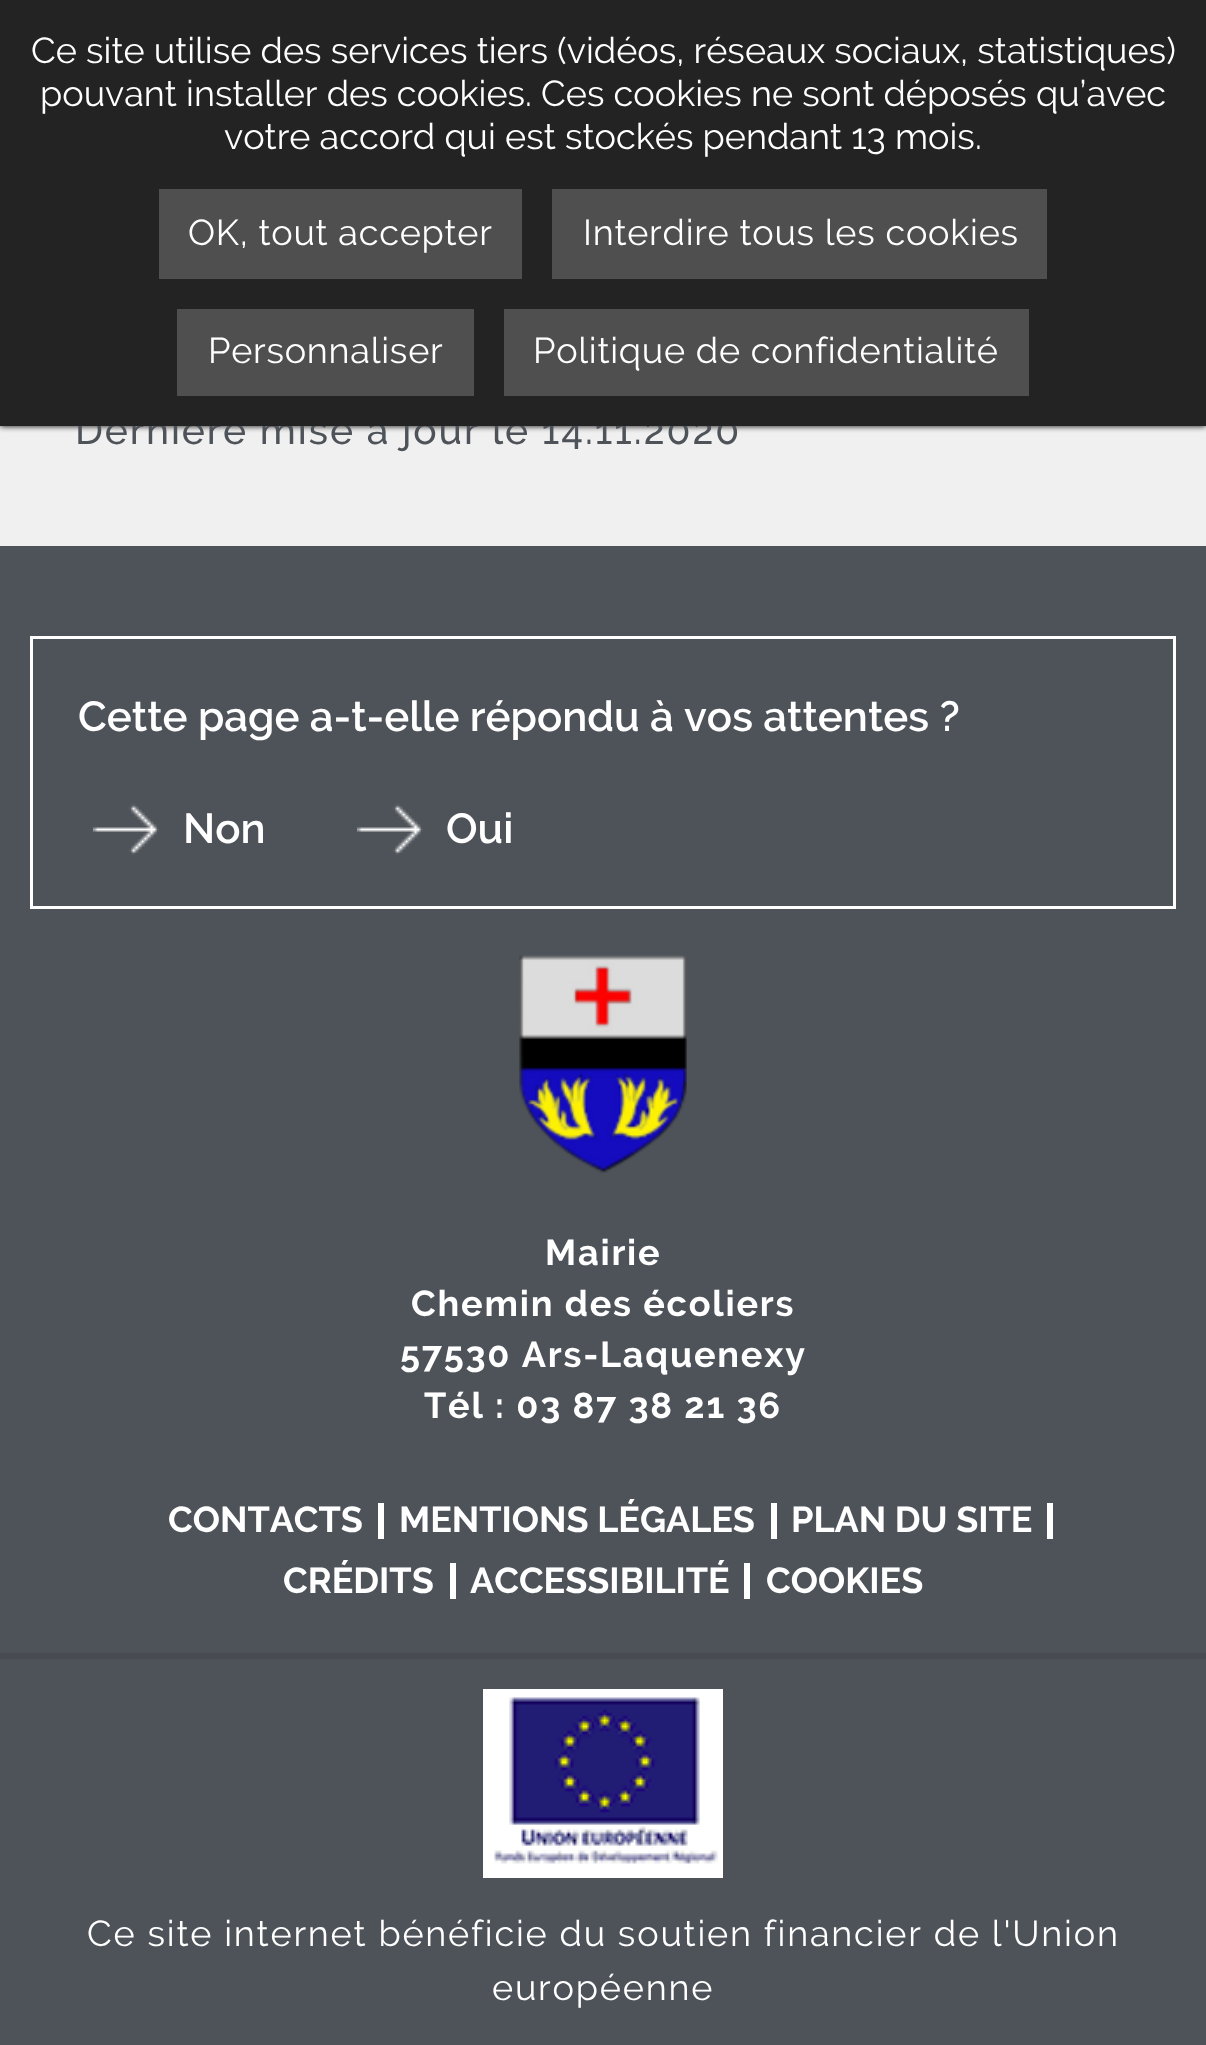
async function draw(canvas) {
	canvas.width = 1206;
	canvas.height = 2045;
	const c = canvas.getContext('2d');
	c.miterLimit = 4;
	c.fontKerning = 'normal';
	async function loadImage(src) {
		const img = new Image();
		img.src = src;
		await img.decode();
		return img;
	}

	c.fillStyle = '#4e5359';
	c.fillRect(0, 0, 1206, 2045);
	c.fillStyle = '#f0f0f0';
	c.fillRect(0, 426, 1206, 120);
	c.fillStyle = '#000';
	c.filter = 'blur(3px)';
	c.beginPath();
	c.rect(0, 0, 1206, 426);
	c.fill();
	c.filter = 'none';
	c.letterSpacing = '1.95px';
	c.font = '500 39px Raleway';
	c.fillStyle = '#4e5359';
	c.fillText('Dernière mise à jour le 14.11.2020', 75, 444);
	c.fillStyle = '#232323';
	c.fillRect(0, 0, 1206, 426);
	c.letterSpacing = '0px';
	c.font = '36px Raleway';
	c.fillStyle = '#fff';
	for (const [text, x, y] of [
		['Ce site utilise des services tiers (vidéos, réseaux sociaux, statistiques)', 31, 63],
		['pouvant installer des cookies. Ces cookies ne sont déposés qu’avec', 40, 106],
		['votre accord qui est stockés pendant 13 mois.', 224, 149],
	]) {
		c.fillText(text, x, y);
	}
	c.fillStyle = '#4f4f4f';
	c.fillRect(159, 189, 363, 90);
	c.letterSpacing = '0.75px';
	c.fillStyle = '#fff';
	c.fillText('OK, tout accepter', 188, 245);
	c.fillStyle = '#4f4f4f';
	c.fillRect(552, 189, 495, 90);
	c.fillStyle = '#fff';
	c.fillText('Interdire tous les cookies', 583, 245);
	c.fillStyle = '#4f4f4f';
	c.fillRect(177, 309, 297, 87);
	c.fillStyle = '#fff';
	c.fillText('Personnaliser', 208, 363);
	c.fillStyle = '#4f4f4f';
	c.fillRect(504, 309, 525, 87);
	c.fillStyle = '#fff';
	c.fillText('Politique de confidentialité', 533, 363);
	c.strokeStyle = '#fff';
	c.lineWidth = 3;
	c.strokeRect(31.5, 637.5, 1143, 270);
	c.letterSpacing = '0px';
	c.font = '600 42px Raleway';
	c.fillText('Cette page a-t-elle répondu à vos attentes ?', 78, 731);
	c.drawImage(await loadImage('img1.png'), 93, 804, 66, 51);
	c.fillText('Non', 183, 843);
	c.drawImage(await loadImage('img1.png'), 357, 804, 66, 51);
	c.fillText('Oui', 446, 843);
	c.drawImage(await loadImage('img2.png'), 519, 955, 168, 218);
	c.letterSpacing = '1.8px';
	c.font = 'bold 36px Raleway';
	for (const [text, x, y] of [
		['Mairie', 545, 1265],
		['Chemin des écoliers', 411, 1316],
		['57530 Ars-Laquenexy', 400, 1367],
		['Tél : 03 87 38 21 36', 424, 1418],
	]) {
		c.fillText(text, x, y);
	}
	c.fillRect(378, 1503, 6, 36);
	c.letterSpacing = '0px';
	c.fillText('CONTACTS', 168, 1532);
	c.fillRect(771, 1503, 6, 36);
	c.fillText('MENTIONS LÉGALES', 399, 1532);
	c.fillRect(1047, 1503, 6, 36);
	c.fillText('PLAN DU SITE', 791, 1532);
	c.fillRect(450, 1563, 6, 36);
	c.fillText('CRÉDITS', 283, 1593);
	c.fillRect(744, 1563, 6, 36);
	c.fillText('ACCESSIBILITÉ', 470, 1593);
	c.fillText('COOKIES', 766, 1593);
	c.fillStyle = '#484c52';
	c.fillRect(0, 1653, 1206, 6);
	c.drawImage(await loadImage('img3.png'), 483, 1689, 240, 189);
	c.letterSpacing = '1.8px';
	c.font = '36px Raleway';
	c.fillStyle = '#fff';
	c.fillText('Ce site internet bénéficie du soutien financier de l\'Union', 87, 1946);
	c.fillText('européenne', 492, 2000);
}

draw(document.querySelector('canvas'));
